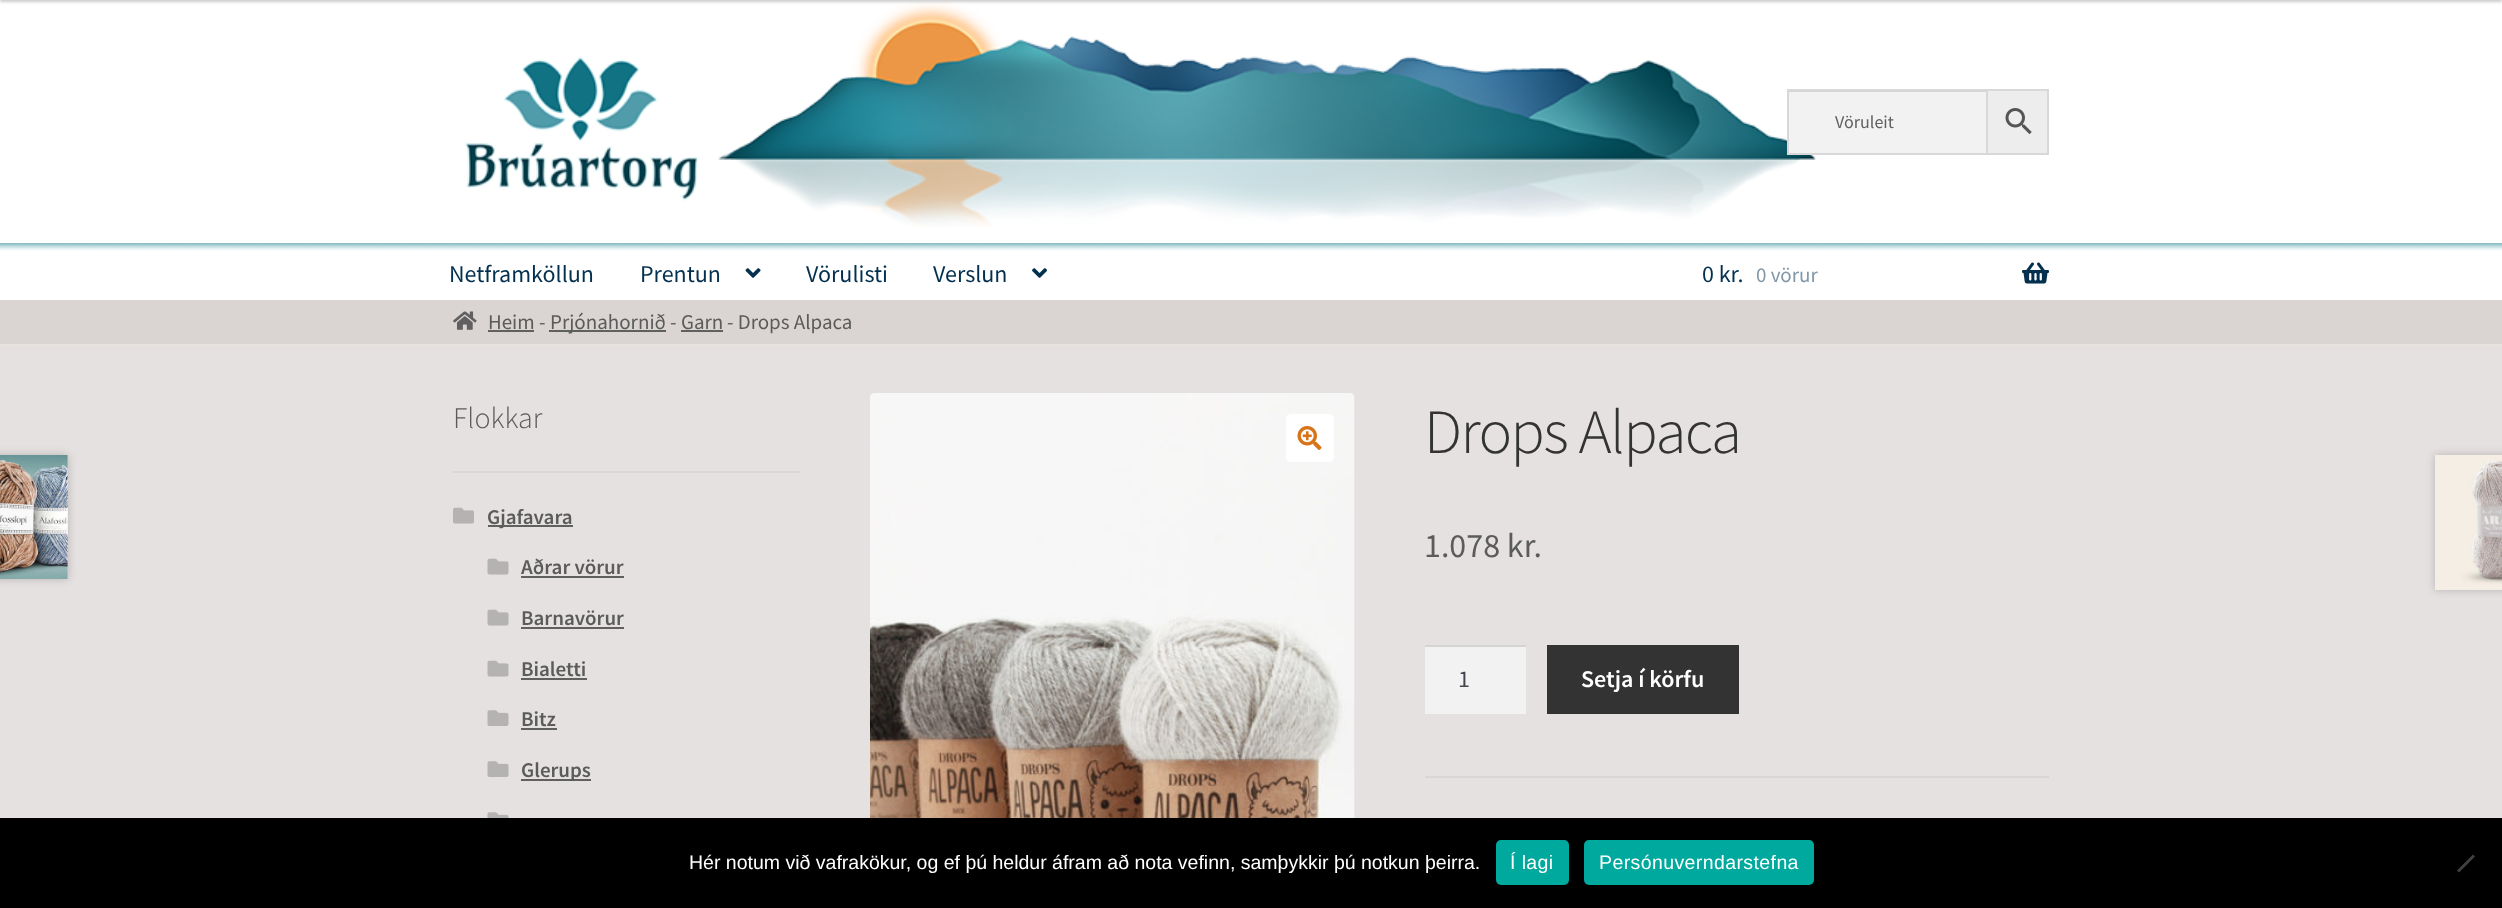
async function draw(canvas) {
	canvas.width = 2502;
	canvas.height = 908;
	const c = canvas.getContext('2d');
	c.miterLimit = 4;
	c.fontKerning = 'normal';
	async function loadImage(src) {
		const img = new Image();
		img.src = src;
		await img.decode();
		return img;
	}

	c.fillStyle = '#e5e1e0';
	c.fillRect(0, 0, 2502, 908);
	c.fillStyle = '#fff';
	c.fillRect(0, 0, 2502, 300);
	c.drawImage(await loadImage('img1.png'), 492, 2, 1324, 225);
	c.fillStyle = '#00000033';
	c.filter = 'blur(1.5px)';
	c.beginPath();
	c.rect(0, -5, 2502, 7);
	c.fill();
	c.filter = 'none';
	c.drawImage(await loadImage('img2.png'), 464, 55, 235, 147);
	c.fillStyle = '#f2f2f2';
	c.fillRect(1789, 92, 197, 61);
	c.fillStyle = '#d4d4d4';
	c.fillRect(1788, 91, 198, 1);
	c.fillStyle = '#ededed';
	c.beginPath();
	c.rect(1987, 90, 61, 64);
	c.fill();
	c.strokeStyle = '#d8d8d8';
	c.lineWidth = 2;
	c.stroke();
	c.strokeRect(1788, 90, 199, 64);
	c.font = '18px Source Sans Pro';
	c.fillStyle = '#616161';
	c.fillText('Vöruleit', 1835, 128);
	c.drawImage(await loadImage('img3.png'), 2005, 108, 27, 27);
	c.drawImage(await loadImage('img4.png'), 0, 243, 2502, 8);
	c.font = '24px Source Sans Pro';
	c.fillStyle = '#04304f';
	c.fillText('Netframköllun', 449, 282);
	c.fillText('Prentun', 640, 282);
	c.drawImage(await loadImage('img5.png'), 745, 268, 16, 10);
	c.fillText('Vörulisti', 806, 282);
	c.fillText('Verslun', 933, 282);
	c.drawImage(await loadImage('img6.png'), 1032, 268, 15, 10);
	c.fillText('0 kr.', 1702, 282);
	c.font = '21px Source Sans Pro';
	c.fillStyle = '#8298a7';
	c.fillText('0 vörur', 1756, 282);
	c.drawImage(await loadImage('img7.png'), 2022, 262, 27, 22);
	c.fillStyle = '#dad5d2';
	c.fillRect(0, 300, 2502, 44);
	c.fillStyle = '#e8e3df';
	c.fillRect(0, 344, 2502, 2);
	c.drawImage(await loadImage('img8.png'), 453, 311, 24, 19);
	c.fillStyle = '#5b5b5b';
	c.fillText('Heim', 488, 329);
	c.fillStyle = '#606060';
	c.fillRect(488, 330, 46, 2);
	c.fillStyle = '#5b5b5b';
	c.fillText('-', 539, 329);
	c.fillStyle = '#606060';
	c.fillRect(549, 330, 117, 2);
	c.fillStyle = '#5b5b5b';
	for (const [text, x, y] of [
		['Prjónahornið', 550, 329],
		['-', 670, 329],
		['Garn', 681, 329],
	]) {
		c.fillText(text, x, y);
	}
	c.fillStyle = '#606060';
	c.fillRect(681, 330, 42, 2);
	c.fillStyle = '#5b5b5b';
	c.fillText('- Drops Alpaca', 727, 329);
	c.fillStyle = '#dad6d5';
	c.fillRect(453, 471, 347, 2);
	c.font = '300 30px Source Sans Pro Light';
	c.fillStyle = '#5b5b5b';
	c.fillText('Flokkar', 453, 428);
	c.drawImage(await loadImage('img9.png'), 453, 507, 21, 17);
	c.fillStyle = '#606060';
	c.fillRect(488, 525, 85, 2);
	c.font = '600 21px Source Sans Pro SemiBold';
	c.fillStyle = '#5b5b5b';
	c.fillText('Gjafavara', 487, 524);
	c.drawImage(await loadImage('img10.png'), 487, 558, 22, 17);
	c.fillText('Aðrar vörur', 521, 574);
	c.fillStyle = '#606060';
	c.fillRect(521, 576, 103, 2);
	c.drawImage(await loadImage('img10.png'), 487, 609, 22, 17);
	c.fillStyle = '#5b5b5b';
	c.fillText('Barnavörur', 521, 625);
	c.fillStyle = '#606060';
	c.fillRect(521, 627, 103, 2);
	c.drawImage(await loadImage('img10.png'), 487, 660, 22, 17);
	c.fillStyle = '#5b5b5b';
	c.fillText('Bialetti', 521, 676);
	c.fillStyle = '#606060';
	c.fillRect(521, 678, 66, 2);
	c.drawImage(await loadImage('img11.png'), 487, 710, 22, 16);
	c.fillStyle = '#5b5b5b';
	c.fillText('Bitz', 521, 726);
	c.fillStyle = '#606060';
	c.fillRect(521, 728, 36, 2);
	c.drawImage(await loadImage('img11.png'), 487, 761, 22, 16);
	c.fillRect(521, 779, 70, 2);
	c.fillStyle = '#5b5b5b';
	c.fillText('Glerups', 521, 777);
	c.drawImage(await loadImage('img12.png'), 487, 812, 22, 6);
	c.drawImage(await loadImage('img13.png'), 870, 393, 485, 425);
	c.fillStyle = '#fff';
	c.beginPath();
	c.roundRect(1286, 414, 48, 48, 5);
	c.fill();
	c.drawImage(await loadImage('img14.png'), 1297, 426, 25, 24);
	c.letterSpacing = '-1.5px';
	c.font = '300 63px Source Sans Pro Light';
	c.fillStyle = '#333';
	c.fillText('Drops Alpaca', 1424, 453);
	c.letterSpacing = '0px';
	c.font = '34px Source Sans Pro';
	c.fillStyle = '#5b5b5b';
	c.fillText('1.078 kr.', 1424, 557);
	c.fillStyle = '#f2f2f2';
	c.fillRect(1425, 647, 101, 67);
	c.fillStyle = '#d4d4d4';
	c.fillRect(1425, 645, 101, 2);
	c.font = '24px Source Sans Pro';
	c.fillStyle = '#43454b';
	c.fillText('1', 1458, 687);
	c.fillStyle = '#333';
	c.fillRect(1547, 645, 192, 69);
	c.font = '600 24px Source Sans Pro SemiBold';
	c.fillStyle = '#fff';
	c.fillText('Setja í körfu', 1581, 687);
	c.fillStyle = '#dad6d5';
	c.fillRect(1425, 776, 624, 2);
	c.fillStyle = '#00000033';
	c.filter = 'blur(4px)';
	c.beginPath();
	c.rect(-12, 455, 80, 124);
	c.fill();
	c.filter = 'none';
	c.fillStyle = '#e5e1e0';
	c.fillRect(67, 455, 1, 124);
	c.drawImage(await loadImage('img15.png'), 0, 455, 68, 124);
	c.fillStyle = '#00000033';
	c.filter = 'blur(4px)';
	c.beginPath();
	c.rect(2435, 455, 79, 135);
	c.fill();
	c.filter = 'none';
	c.drawImage(await loadImage('img16.png'), 2435, 455, 67, 135);
	c.fillStyle = '#000';
	c.fillRect(0, 818, 2502, 90);
	c.font = '19.5px Liberation Sans';
	c.fillStyle = '#fff';
	c.fillText('Hér notum við vafrakökur, og ef þú heldur áfram að nota vefinn, samþykkir þú notkun þeirra.', 689, 869);
	c.fillStyle = '#00a99d';
	c.beginPath();
	c.roundRect(1496, 840, 73, 45, 5);
	c.fill();
	c.letterSpacing = '0.4px';
	c.fillStyle = '#fff';
	c.fillText('Í lagi', 1510, 869);
	c.fillStyle = '#00a99d';
	c.beginPath();
	c.roundRect(1584, 840, 230, 45, 5);
	c.fill();
	c.fillStyle = '#fff';
	c.fillText('Persónuverndarstefna', 1599, 869);
	c.fillStyle = '#404040';
	c.beginPath();
	c.moveTo(2473, 854.5);
	c.lineTo(2475, 856.5);
	c.lineTo(2459, 872.5);
	c.lineTo(2457, 870.5);
	c.closePath();
	c.fill();
}

draw(document.querySelector('canvas'));
